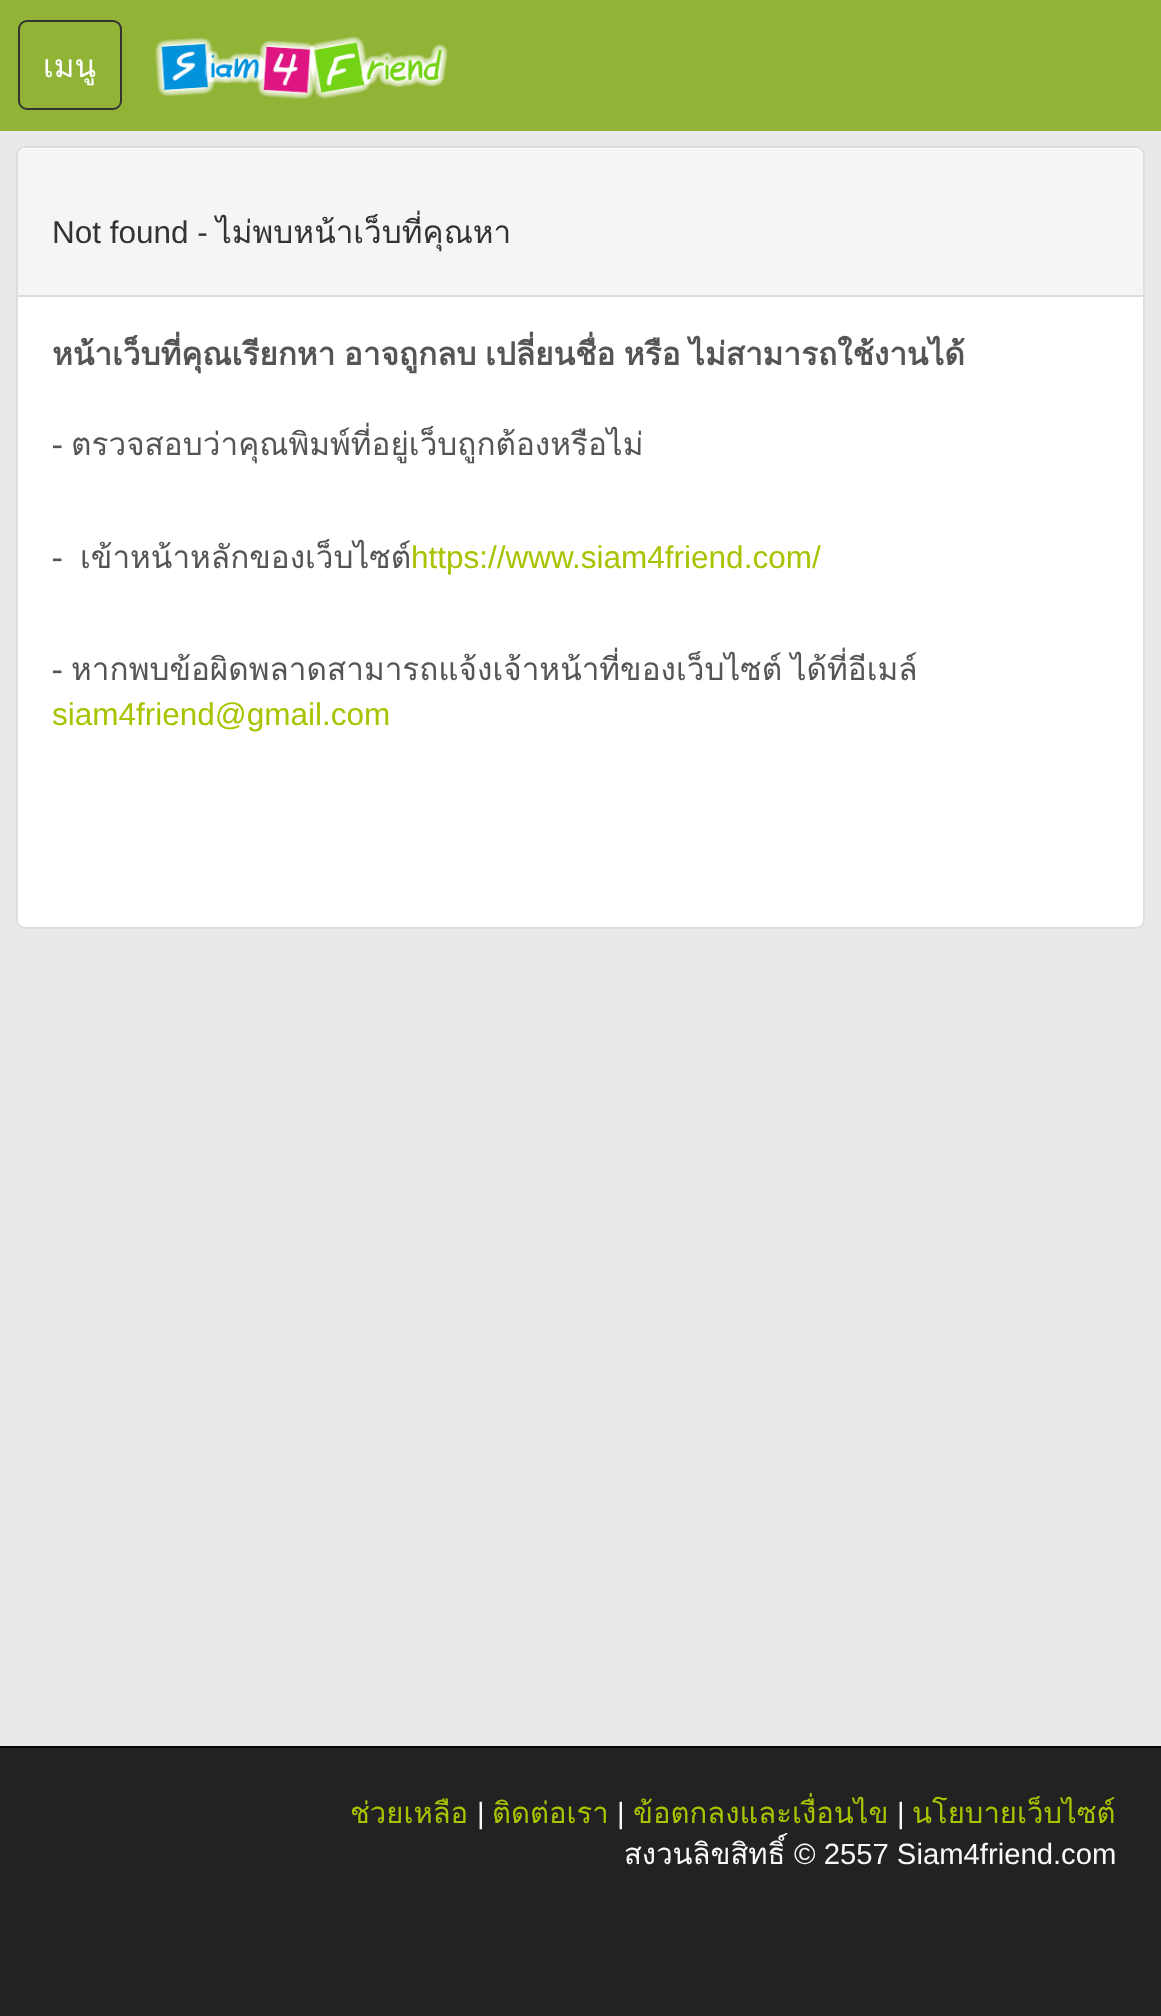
async function draw(canvas) {
	canvas.width = 1161;
	canvas.height = 2016;
	const c = canvas.getContext('2d');
	c.miterLimit = 4;
	c.fontKerning = 'normal';
	async function loadImage(src) {
		const img = new Image();
		img.src = src;
		await img.decode();
		return img;
	}

	c.fillStyle = '#e8e9eb';
	c.fillRect(0, 0, 1161, 2016);
	c.fillStyle = '#91b336';
	c.fillRect(0, 0, 1161, 131);
	c.beginPath();
	c.roundRect(19, 21, 102, 88, 8);
	c.strokeStyle = '#333';
	c.lineWidth = 2;
	c.stroke();
	c.font = '31.5px Loma';
	c.fillStyle = '#fff';
	c.fillText('เมนู', 43, 77);
	c.drawImage(await loadImage('img1.png'), 155, 36, 293, 63);
	c.beginPath();
	c.roundRect(17, 147, 1127, 781, 8);
	c.fill();
	c.strokeStyle = '#ddd';
	c.stroke();
	c.fillStyle = '#f5f5f5';
	c.beginPath();
	c.roundRect(18, 149, 1125, 148, [7, 7, 0, 0]);
	c.fill();
	c.fillStyle = '#ddd';
	c.fillRect(18, 295, 1125, 2);
	c.font = '31.5px Liberation Sans';
	c.fillStyle = '#333';
	c.fillText('Not found -', 52, 243);
	c.font = '31.5px Loma';
	c.fillText('ไม่พบหน้าเว็บที่คุณหา', 216, 243);
	c.wordSpacing = '-2px';
	c.font = 'bold 31.5px Loma';
	c.fillStyle = '#555';
	c.fillText('หน้าเว็บที่คุณเรียกหา อาจถูกลบ เปลี่ยนชื่อ หรือ ไม่สามารถใช้งานได้', 52, 365);
	c.font = '31.5px Loma';
	c.fillText('- ตรวจสอบว่าคุณพิมพ์ที่อยู่เว็บถูกต้องหรือไม่', 52, 455);
	c.wordSpacing = '7px';
	c.fillText('- เข้าหน้าหลักของเว็บไซต์', 52, 568);
	c.wordSpacing = '0px';
	c.font = '31.5px Liberation Sans';
	c.fillStyle = '#a9c201';
	c.fillText('https://www.siam4friend.com/', 411, 568);
	c.wordSpacing = '-2px';
	c.font = '31.5px Loma';
	c.fillStyle = '#555';
	c.fillText('- หากพบข้อผิดพลาดสามารถแจ้งเจ้าหน้าที่ของเว็บไซต์ ได้ที่อีเมล์', 52, 680);
	c.wordSpacing = '0px';
	c.font = '31.5px Liberation Sans';
	c.fillStyle = '#a9c201';
	c.fillText('siam4friend@gmail.com', 52, 725);
	c.fillStyle = '#222';
	c.fillRect(0, 1748, 1161, 268);
	c.fillStyle = '#080808';
	c.fillRect(0, 1746, 1161, 2);
	c.font = '29.25px Loma';
	c.fillStyle = '#a9c201';
	c.fillText('ช่วยเหลือ', 350, 1823);
	c.font = '29.25px Liberation Sans';
	c.fillStyle = '#f9f9f9';
	c.fillText('|', 477, 1823);
	c.font = '29.25px Loma';
	c.fillStyle = '#a9c201';
	c.fillText('ติดต่อเรา', 492, 1823);
	c.font = '29.25px Liberation Sans';
	c.fillStyle = '#f9f9f9';
	c.fillText('|', 617, 1823);
	c.font = '29.25px Loma';
	c.fillStyle = '#a9c201';
	c.fillText('ข้อตกลงและเงื่อนไข', 633, 1823);
	c.fillText('นโยบายเว็บไซต์', 912, 1823);
	c.font = '29.25px Liberation Sans';
	c.fillStyle = '#f9f9f9';
	c.fillText('|', 897, 1823);
	c.font = '29.25px Loma';
	c.fillText('สงวนลิขสิทธิ์', 624, 1864);
	c.font = '29.25px Liberation Sans';
	c.fillText('© 2557 Siam4friend.com', 794, 1864);
}

draw(document.querySelector('canvas'));
